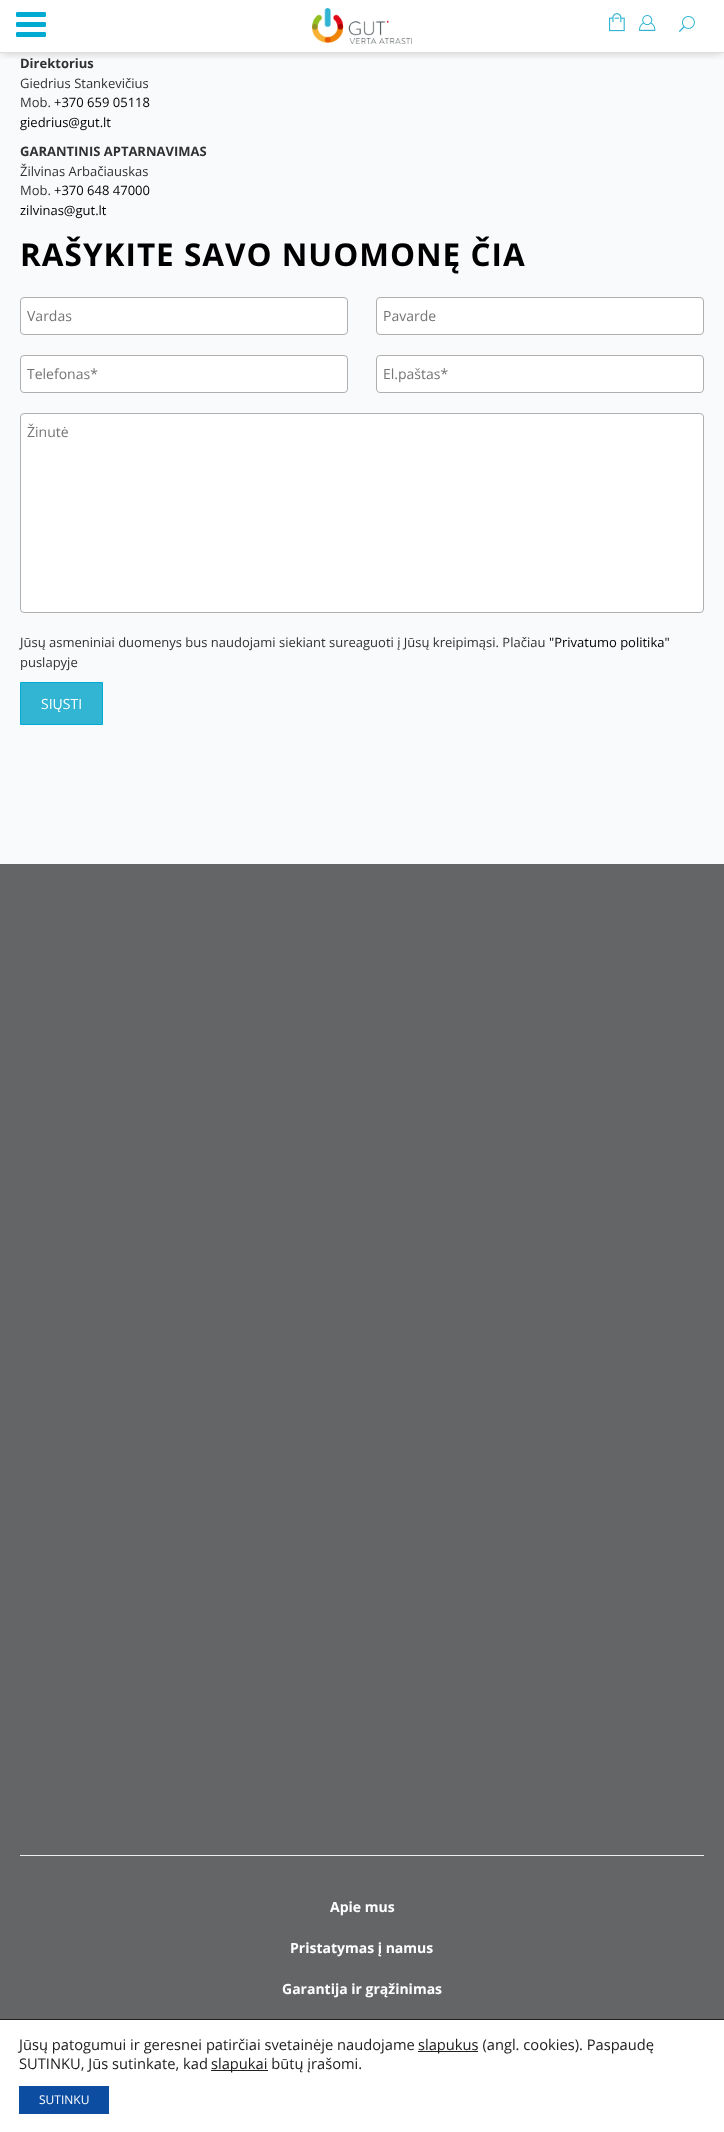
async function draw(canvas) {
	canvas.width = 724;
	canvas.height = 2132;
	const c = canvas.getContext('2d');
	c.miterLimit = 4;
	c.fontKerning = 'normal';
	async function loadImage(src) {
		const img = new Image();
		img.src = src;
		await img.decode();
		return img;
	}

	c.fillStyle = '#f8fafc';
	c.fillRect(0, 0, 724, 2132);
	c.fillStyle = '#fff';
	c.fillRect(0, 0, 724, 52);
	c.save();
	c.beginPath();
	c.rect(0, 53, 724, 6);
	c.clip();
	c.fillStyle = '#00000033';
	c.filter = 'blur(5px)';
	c.beginPath();
	c.rect(2, 4, 720, 49);
	c.fill();
	c.filter = 'none';
	c.restore();
	c.fillStyle = '#dfdfdf';
	c.fillRect(0, 52, 724, 1);
	c.drawImage(await loadImage('img1.png'), 16, 12, 30, 25);
	c.drawImage(await loadImage('img2.png'), 312, 8, 100, 36);
	c.drawImage(await loadImage('img3.png'), 609, 13, 16, 19);
	c.drawImage(await loadImage('img4.png'), 639, 15, 17, 16);
	c.drawImage(await loadImage('img5.png'), 679, 16, 16, 16);
	c.font = 'bold 13px Open Sans';
	c.fillStyle = '#313131';
	c.fillText('Direktorius', 20, 68);
	c.font = '13px Open Sans';
	c.fillText('Giedrius Stankevičius', 20, 88);
	c.fillText('Mob.', 20, 107);
	c.fillStyle = '#000';
	c.fillText('+370 659 05118', 54, 107);
	c.fillText('giedrius@gut.lt', 20, 127);
	c.font = 'bold 13px Open Sans';
	c.fillStyle = '#313131';
	c.fillText('GARANTINIS APTARNAVIMAS', 20, 156);
	c.font = '13px Open Sans';
	c.fillText('Žilvinas Arbačiauskas', 20, 176);
	c.fillText('Mob.', 20, 195);
	c.fillStyle = '#000';
	c.fillText('+370 648 47000', 54, 195);
	c.fillText('zilvinas@gut.lt', 20, 215);
	c.letterSpacing = '1px';
	c.font = 'bold 31.5px Open Sans';
	c.fillText('RAŠYKITE SAVO NUOMONĘ ČIA', 20, 266);
	c.fillStyle = '#fff';
	c.beginPath();
	c.roundRect(20.5, 297.5, 327, 37, 3.5);
	c.fill();
	c.strokeStyle = '#afafaf';
	c.stroke();
	c.letterSpacing = '0px';
	c.font = '14px Open Sans';
	c.fillStyle = '#757575';
	c.fillText('Vardas', 27, 321);
	c.fillStyle = '#fff';
	c.beginPath();
	c.roundRect(20.5, 355.5, 327, 37, 3.5);
	c.fill();
	c.stroke();
	c.fillStyle = '#757575';
	c.fillText('Telefonas*', 27, 379);
	c.fillStyle = '#fff';
	c.beginPath();
	c.roundRect(376.5, 297.5, 327, 37, 3.5);
	c.fill();
	c.stroke();
	c.fillStyle = '#757575';
	c.fillText('Pavarde', 383, 321);
	c.fillStyle = '#fff';
	c.beginPath();
	c.roundRect(376.5, 355.5, 327, 37, 3.5);
	c.fill();
	c.stroke();
	c.fillStyle = '#757575';
	c.fillText('El.paštas*', 383, 379);
	c.fillStyle = '#fff';
	c.beginPath();
	c.roundRect(20.5, 413.5, 683, 199, 3.5);
	c.fill();
	c.stroke();
	c.fillStyle = '#757575';
	c.fillText('Žinutė', 27, 437);
	c.font = '13px Open Sans';
	c.fillStyle = '#313131';
	c.fillText('Jūsų asmeniniai duomenys bus naudojami siekiant sureaguoti į Jūsų kreipimąsi. Plačiau', 20, 647);
	c.fillStyle = '#000';
	c.fillText('"Privatumo politika"', 549, 647);
	c.fillStyle = '#313131';
	c.fillText('puslapyje', 20, 667);
	c.fillStyle = '#32b4d3';
	c.beginPath();
	c.rect(20.5, 682.5, 82, 42);
	c.fill();
	c.strokeStyle = '#00aad3';
	c.stroke();
	c.font = '14px Open Sans';
	c.fillStyle = '#fff';
	c.fillText('SIŲSTI', 41, 709);
	c.fillStyle = '#636567';
	c.fillRect(0, 864, 724, 1155);
	c.fillStyle = '#eee';
	c.fillRect(20, 1855, 684, 1);
	c.font = 'bold 14px Open Sans';
	c.fillStyle = '#fff';
	for (const [text, x, y] of [
		['Apie mus', 330, 1912],
		['Pristatymas į namus', 290, 1953],
		['Garantija ir grąžinimas', 282, 1994],
	]) {
		c.fillText(text, x, y);
	}
	c.fillRect(0, 2020, 724, 112);
	c.fillStyle = '#202020';
	c.fillRect(0, 2019, 724, 1);
	c.font = '14.7px Open Sans';
	c.fillText('Jūsų patogumui ir geresnei patirčiai svetainėje naudojame', 19, 2050);
	c.fillRect(418, 2051, 60, 1);
	c.fillText('slapukus (angl. cookies). Paspaudę', 418, 2050);
	c.fillText('SUTINKU, Jūs sutinkate, kad', 19, 2069);
	c.fillRect(211, 2070, 57, 1);
	c.fillText('slapukai būtų įrašomi.', 211, 2069);
	c.fillStyle = '#0c4da2';
	c.fillRect(19, 2086, 90, 28);
	c.font = '12px Open Sans';
	c.fillStyle = '#fff';
	c.fillText('SUTINKU', 39, 2104);
}

draw(document.querySelector('canvas'));
